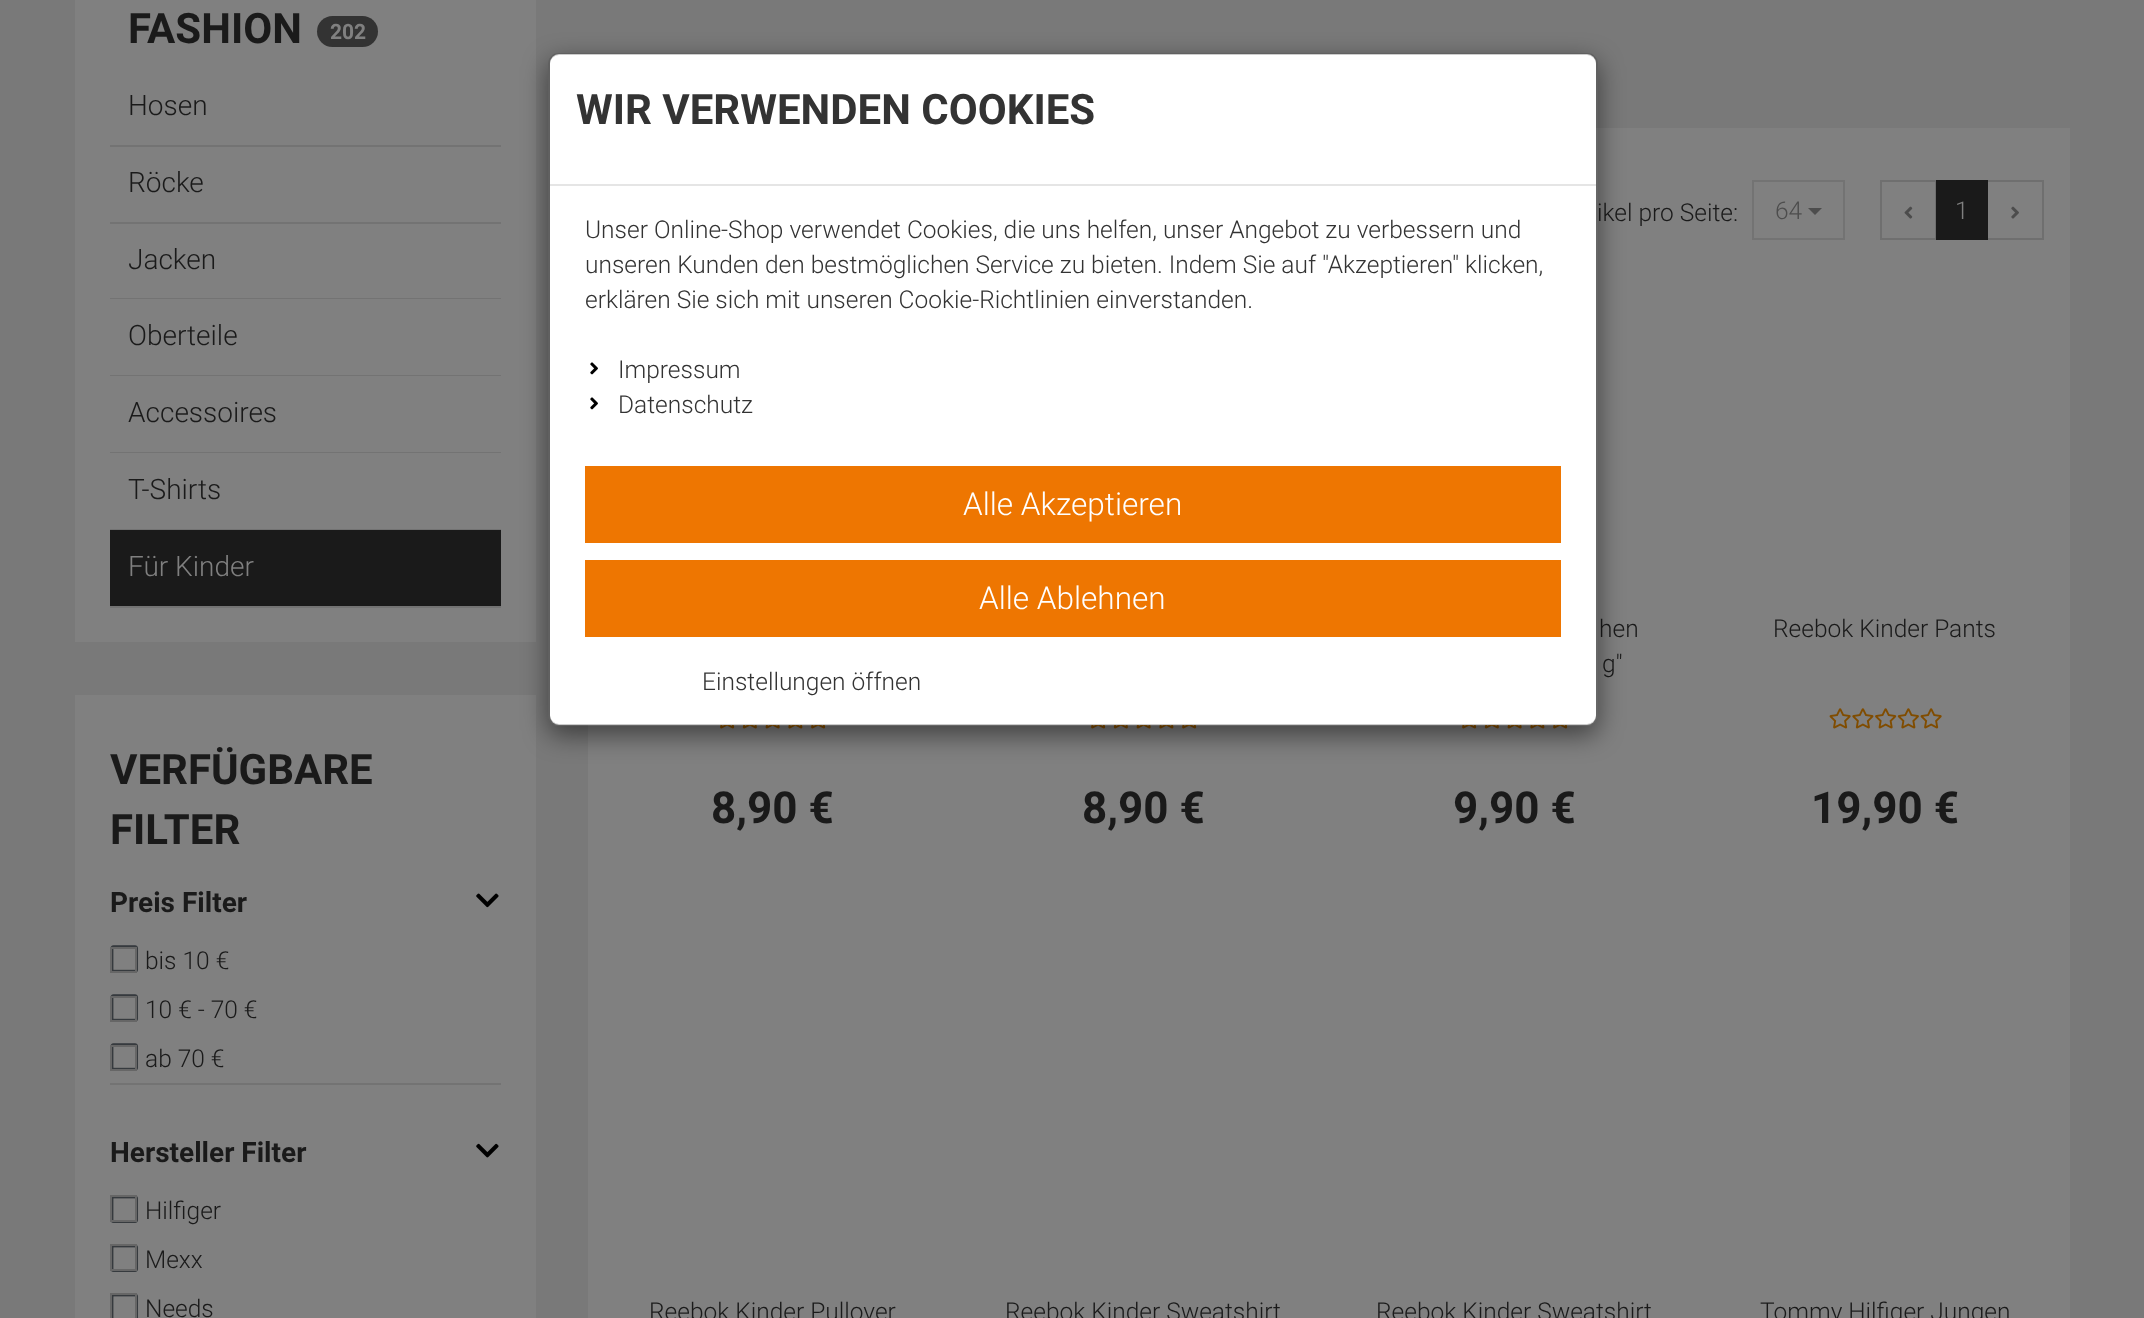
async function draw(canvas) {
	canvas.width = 2144;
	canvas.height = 1318;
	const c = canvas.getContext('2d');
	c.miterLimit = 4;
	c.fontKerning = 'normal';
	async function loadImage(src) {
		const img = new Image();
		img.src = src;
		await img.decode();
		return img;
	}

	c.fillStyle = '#797979';
	c.fillRect(0, 0, 2144, 1318);
	c.fillStyle = '#808080';
	c.fillRect(75, 0, 461, 642);
	c.font = 'bold 42px Roboto';
	c.fillStyle = '#1a1a1a';
	c.fillText('FASHION', 128, 43);
	c.fillStyle = '#333';
	c.beginPath();
	c.roundRect(317, 16, 61, 31, 15.5);
	c.fill();
	c.font = 'bold 21px Roboto';
	c.fillStyle = '#808080';
	c.fillText('202', 330, 39);
	c.fillStyle = '#737373';
	c.fillRect(110, 145, 391, 2);
	c.font = '300 28px Roboto';
	c.fillStyle = '#1a1a1a';
	c.fillText('Hosen', 128, 115);
	c.fillStyle = '#737373';
	c.fillRect(110, 222, 391, 2);
	c.fillStyle = '#1a1a1a';
	c.fillText('Röcke', 128, 192);
	c.fillStyle = '#737373';
	c.fillRect(110, 298, 391, 1);
	c.fillStyle = '#1a1a1a';
	c.fillText('Jacken', 128, 269);
	c.fillStyle = '#737373';
	c.fillRect(110, 375, 391, 1);
	c.fillStyle = '#1a1a1a';
	c.fillText('Oberteile', 128, 345);
	c.fillStyle = '#737373';
	c.fillRect(110, 452, 391, 1);
	c.fillStyle = '#1a1a1a';
	c.fillText('Accessoires', 128, 422);
	c.fillStyle = '#737373';
	c.fillRect(110, 529, 391, 1);
	c.fillStyle = '#1a1a1a';
	c.fillText('T-Shirts', 128, 499);
	c.fillRect(110, 530, 391, 76);
	c.fillStyle = '#737373';
	c.fillRect(110, 606, 391, 2);
	c.fillStyle = '#808080';
	c.fillText('Für Kinder', 128, 576);
	c.fillRect(75, 695, 461, 623);
	c.font = 'bold 42px Roboto';
	c.fillStyle = '#1a1a1a';
	c.fillText('VERFÜGBARE', 110, 784);
	c.fillText('FILTER', 110, 844);
	c.fillStyle = '#737373';
	c.fillRect(110, 1083, 391, 2);
	c.font = 'bold 28px Roboto';
	c.fillStyle = '#1a1a1a';
	c.fillText('Preis Filter', 110, 912);
	c.drawImage(await loadImage('img1.png'), 476, 893, 23, 15);
	c.drawImage(await loadImage('img2.png'), 110, 945, 29, 27);
	c.strokeStyle = '#666';
	c.lineWidth = 2;
	c.strokeRect(111, 948, 25, 24);
	c.font = '300 24.5px Roboto';
	c.fillText('bis 10 €', 145, 969);
	c.drawImage(await loadImage('img2.png'), 110, 994, 29, 27);
	c.strokeRect(111, 997, 25, 24);
	c.fillText('10 € - 70 €', 145, 1018);
	c.drawImage(await loadImage('img2.png'), 110, 1043, 29, 27);
	c.strokeRect(111, 1046, 25, 24);
	c.fillText('ab 70 €', 145, 1067);
	c.font = 'bold 28px Roboto';
	c.fillText('Hersteller Filter', 110, 1162);
	c.drawImage(await loadImage('img3.png'), 476, 1143, 23, 15);
	c.drawImage(await loadImage('img4.png'), 111, 1196, 28, 27);
	c.strokeRect(111, 1196, 25, 25);
	c.font = '300 24.5px Roboto';
	c.fillText('Hilfiger', 145, 1219);
	c.drawImage(await loadImage('img4.png'), 111, 1245, 28, 27);
	c.strokeRect(111, 1245, 25, 25);
	c.fillText('Mexx', 145, 1268);
	c.drawImage(await loadImage('img5.png'), 112, 1294, 27, 24);
	c.strokeRect(111, 1294, 25, 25);
	c.fillText('Needs', 145, 1317);
	c.fillStyle = '#808080';
	c.fillRect(1596, 128, 474, 164);
	c.fillStyle = '#1a1a1a';
	c.fillText('ikel pro Seite:', 1597, 221);
	c.strokeStyle = '#737373';
	c.strokeRect(1753, 181, 91, 58);
	c.fillStyle = '#4d4d4d';
	c.fillText('64', 1775, 219);
	c.beginPath();
	c.moveTo(1808, 208);
	c.lineTo(1822, 208);
	c.lineTo(1815, 215);
	c.closePath();
	c.fill();
	c.strokeStyle = '#6f6f6f';
	c.strokeRect(1881, 181, 55, 58);
	c.drawImage(await loadImage('img6.png'), 1904, 206, 9, 13);
	c.strokeRect(1987, 181, 56, 58);
	c.fillStyle = '#1a1a1a';
	c.fillRect(1936, 180, 52, 60);
	c.fillStyle = '#808080';
	c.fillText('1', 1955, 219);
	c.drawImage(await loadImage('img7.png'), 2011, 206, 8, 13);
	c.fillRect(588, 292, 1482, 1026);
	c.drawImage(await loadImage('img8.png'), 720, 725, 15, 4);
	c.drawImage(await loadImage('img9.png'), 742, 725, 15, 4);
	c.drawImage(await loadImage('img10.png'), 765, 725, 15, 4);
	c.drawImage(await loadImage('img11.png'), 788, 725, 15, 4);
	c.drawImage(await loadImage('img8.png'), 811, 725, 15, 4);
	c.font = 'bold 44px Roboto';
	c.fillStyle = '#1a1a1a';
	c.fillText('8,90 €', 711, 823);
	c.drawImage(await loadImage('img8.png'), 1091, 725, 15, 4);
	c.drawImage(await loadImage('img9.png'), 1113, 725, 15, 4);
	c.drawImage(await loadImage('img10.png'), 1136, 725, 15, 4);
	c.drawImage(await loadImage('img11.png'), 1159, 725, 15, 4);
	c.drawImage(await loadImage('img8.png'), 1182, 725, 15, 4);
	c.fillText('8,90 €', 1082, 823);
	c.font = '300 24.5px Roboto';
	c.fillText('hen', 1599, 637);
	c.fillText('g"', 1602, 672);
	c.drawImage(await loadImage('img8.png'), 1462, 725, 15, 4);
	c.drawImage(await loadImage('img9.png'), 1484, 725, 15, 4);
	c.drawImage(await loadImage('img10.png'), 1507, 725, 15, 4);
	c.drawImage(await loadImage('img11.png'), 1530, 725, 15, 4);
	c.drawImage(await loadImage('img8.png'), 1553, 725, 15, 4);
	c.font = 'bold 44px Roboto';
	c.fillText('9,90 €', 1453, 823);
	c.font = '300 24.5px Roboto';
	c.fillText('Reebok Kinder Pants', 1773, 637);
	c.drawImage(await loadImage('img12.png'), 1829, 708, 22, 21);
	c.drawImage(await loadImage('img13.png'), 1852, 708, 22, 21);
	c.drawImage(await loadImage('img14.png'), 1875, 708, 22, 21);
	c.drawImage(await loadImage('img15.png'), 1897, 708, 22, 21);
	c.drawImage(await loadImage('img12.png'), 1920, 708, 22, 21);
	c.font = 'bold 44px Roboto';
	c.fillText('19,90 €', 1811, 823);
	c.font = '300 24.5px Roboto';
	for (const [text, x, y] of [
		['Reebok Kinder Pullover', 649, 1320],
		['Reebok Kinder Sweatshirt', 1005, 1320],
		['Reebok Kinder Sweatshirt', 1376, 1320],
		['Tommy Hilfiger Jungen', 1760, 1320],
	]) {
		c.fillText(text, x, y);
	}
	c.save();
	c.beginPath();
	c.moveTo(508, 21);
	c.lineTo(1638, 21);
	c.lineTo(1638, 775);
	c.lineTo(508, 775);
	c.closePath();
	c.moveTo(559, 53);
	c.lineTo(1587, 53);
	c.bezierCurveTo(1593, 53, 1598, 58, 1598, 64);
	c.lineTo(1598, 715);
	c.bezierCurveTo(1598, 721, 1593, 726, 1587, 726);
	c.lineTo(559, 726);
	c.bezierCurveTo(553, 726, 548, 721, 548, 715);
	c.lineTo(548, 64);
	c.bezierCurveTo(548, 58, 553, 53, 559, 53);
	c.closePath();
	c.clip('evenodd');
	c.fillStyle = '#00000080';
	c.filter = 'blur(13px)';
	c.beginPath();
	c.roundRect(548, 61, 1050, 674, 11);
	c.fill();
	c.filter = 'none';
	c.restore();
	c.fillStyle = '#fff';
	c.beginPath();
	c.roundRect(550, 54, 1046, 671, 9);
	c.fill();
	c.beginPath();
	c.roundRect(549, 54, 1048, 671, 10);
	c.strokeStyle = '#00000033';
	c.stroke();
	c.fillStyle = '#e5e5e5';
	c.fillRect(550, 184, 1046, 2);
	c.font = 'bold 42px Roboto';
	c.fillStyle = '#333';
	c.fillText('WIR VERWENDEN COOKIES', 576, 124);
	c.font = '300 24.5px Roboto';
	for (const [text, x, y] of [
		['Unser Online-Shop verwendet Cookies, die uns helfen, unser Angebot zu verbessern und', 585, 238],
		['unseren Kunden den bestmöglichen Service zu bieten. Indem Sie auf "Akzeptieren" klicken,', 585, 273],
		['erklären Sie sich mit unseren Cookie-Richtlinien einverstanden.', 585, 308],
	]) {
		c.fillText(text, x, y);
	}
	c.drawImage(await loadImage('img16.png'), 590, 362, 8, 13);
	c.fillText('Impressum', 618, 378);
	c.drawImage(await loadImage('img16.png'), 590, 397, 8, 13);
	c.fillText('Datenschutz', 618, 413);
	c.fillStyle = '#ee7601';
	c.fillRect(585, 466, 976, 77);
	c.font = '300 31.5px Roboto';
	c.fillStyle = '#fff';
	c.fillText('Alle Akzeptieren', 963, 515);
	c.fillStyle = '#ee7601';
	c.fillRect(585, 560, 976, 77);
	c.fillStyle = '#fff';
	c.fillText('Alle Ablehnen', 979, 609);
	c.font = '300 24.5px Roboto';
	c.fillStyle = '#333';
	c.fillText('Einstellungen öffnen', 702, 690);
}

draw(document.querySelector('canvas'));
